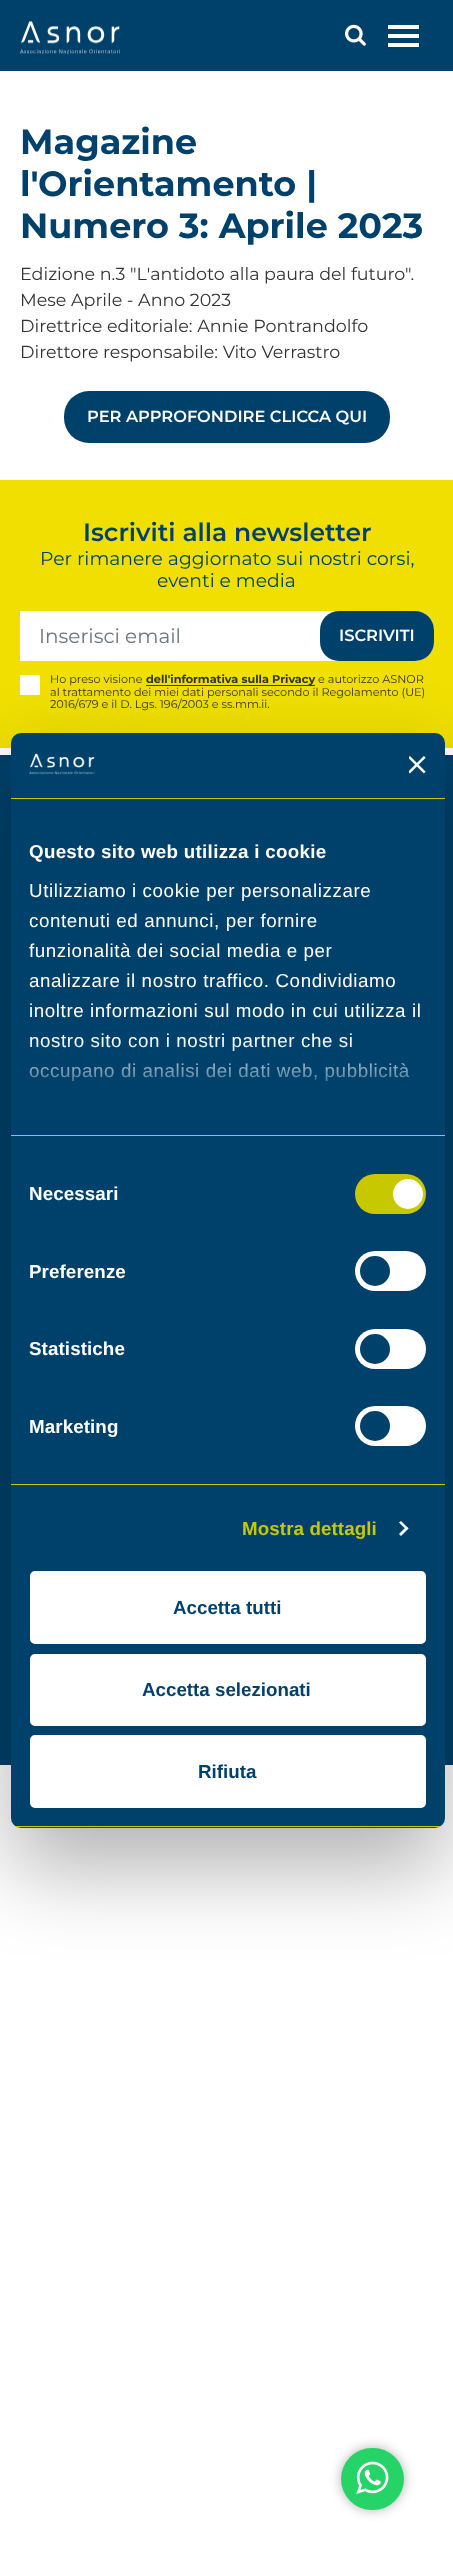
async function draw(canvas) {
	canvas.width = 453;
	canvas.height = 2560;
	const c = canvas.getContext('2d');
	c.miterLimit = 4;
	c.fontKerning = 'normal';
	async function loadImage(src) {
		const img = new Image();
		img.src = src;
		await img.decode();
		return img;
	}
	let gradient;

	c.fillStyle = '#fff';
	c.fillRect(0, 0, 453, 2560);
	c.fillStyle = '#00416b';
	c.fillRect(0, 0, 453, 71);
	c.drawImage(await loadImage('img1.png'), 20, 21, 100, 34);
	c.drawImage(await loadImage('img2.png'), 345, 24, 21, 22);
	for (const [x, y, w, h, color] of [
		[388, 25, 31, 4, '#fff'],
		[388, 34, 31, 4, '#fff'],
		[388, 43, 31, 4, '#fff'],
	]) {
		c.fillStyle = color;
		c.fillRect(x, y, w, h);
	}
	c.font = 'bold 35px Montserrat';
	c.fillStyle = '#00416b';
	for (const [text, x, y] of [
		['Magazine', 20, 154],
		['l\'Orientamento |', 20, 196],
		['Numero 3: Aprile 2023', 20, 238],
	]) {
		c.fillText(text, x, y);
	}
	c.font = '17.5px Montserrat';
	c.fillStyle = '#333';
	for (const [text, x, y] of [
		['Edizione n.3 "L\'antidoto alla paura del futuro".', 20, 280],
		['Mese Aprile - Anno 2023', 20, 306],
		['Direttrice editoriale: Annie Pontrandolfo', 20, 332],
		['Direttore responsabile: Vito Verrastro', 20, 358],
	]) {
		c.fillText(text, x, y);
	}
	c.fillStyle = '#00416b';
	c.beginPath();
	c.roundRect(64, 391, 326, 52, 25);
	c.fill();
	c.font = '600 16.25px Montserrat';
	c.fillStyle = '#fff';
	c.fillText('PER APPROFONDIRE CLICCA QUI', 87, 422);
	c.fillStyle = '#f0df00';
	c.fillRect(0, 480, 453, 268);
	c.font = '600 25px Montserrat';
	c.fillStyle = '#00416b';
	c.fillText('Iscriviti alla newsletter', 83, 541);
	c.font = '18.75px Montserrat';
	c.fillText('Per rimanere aggiornato sui nostri corsi,', 40, 565);
	c.fillText('eventi e media', 157, 587);
	c.fillStyle = '#fff';
	c.beginPath();
	c.roundRect(20, 611, 414, 50, [0, 19, 19, 0]);
	c.fill();
	c.font = '20px Montserrat';
	c.fillStyle = '#6c757d';
	c.fillText('Inserisci email', 39, 643);
	c.fillStyle = '#00416b';
	c.beginPath();
	c.roundRect(320, 611, 114, 50, 19);
	c.fill();
	c.font = '600 16.25px Montserrat';
	c.fillStyle = '#fff';
	c.fillText('ISCRIVITI', 339, 641);
	c.beginPath();
	c.roundRect(20, 675, 20, 20, 1);
	c.fill();
	c.font = '11.25px Montserrat';
	c.fillStyle = '#333';
	c.fillText('Ho preso visione', 50, 683);
	c.fillRect(146, 685, 169, 1);
	c.font = 'bold 11.25px Montserrat';
	c.fillText('dell\'informativa sulla Privacy', 146, 683);
	c.font = '11.25px Montserrat';
	for (const [text, x, y] of [
		['e autorizzo ASNOR', 318, 683],
		['al trattamento dei miei dati personali secondo il Regolamento (UE)', 50, 696],
		['2016/679 e il D. Lgs. 196/2003 e ss.mm.ii.', 50, 708],
	]) {
		c.fillText(text, x, y);
	}
	c.fillStyle = '#00416b';
	c.fillRect(0, 755, 453, 1010);
	c.fillStyle = '#0000004d';
	c.filter = 'blur(42.5px)';
	c.beginPath();
	c.roundRect(11, 773, 434, 1095, 10);
	c.fill();
	c.filter = 'none';
	c.fillStyle = '#00416b';
	c.beginPath();
	c.roundRect(11, 733, 434, 1095, 10);
	c.fill();
	c.fillStyle = '#c8c800';
	c.fillRect(11, 798, 434, 1);
	c.drawImage(await loadImage('img3.png'), 29, 753, 66, 22);
	c.drawImage(await loadImage('img4.png'), 409, 756, 17, 18);
	c.fillRect(11, 1135, 434, 1);
	c.letterSpacing = '0.3px';
	c.font = 'bold 18.75px Liberation Sans';
	c.fillStyle = '#fff';
	c.fillText('Questo sito web utilizza i cookie', 29, 858);
	c.letterSpacing = '0.6px';
	c.font = '18.75px Liberation Sans';
	for (const [text, x, y] of [
		['Utilizziamo i cookie per personalizzare', 29, 897],
		['contenuti ed annunci, per fornire', 29, 927],
		['funzionalità dei social media e per', 29, 957],
		['analizzare il nostro traffico. Condividiamo', 29, 987],
		['inoltre informazioni sul modo in cui utilizza il', 29, 1017],
		['nostro sito con i nostri partner che si', 29, 1047],
		['occupano di analisi dei dati web, pubblicità', 29, 1077],
	]) {
		c.fillText(text, x, y);
	}
	gradient = c.createLinearGradient(219, 1135, 219, 1041);
	gradient.addColorStop(0, '#00416b');
	gradient.addColorStop(0.5, '#00416bcc');
	gradient.addColorStop(1, '#00416b00');
	c.fillStyle = gradient;
	c.fillRect(29, 1042, 382, 39);
	c.fillStyle = '#c8c800';
	c.fillRect(11, 1484, 434, 1);
	c.letterSpacing = '0.1px';
	c.font = 'bold 18.75px Liberation Sans';
	c.fillStyle = '#fff';
	c.fillText('Necessari', 29, 1200);
	c.fillStyle = '#c8c800';
	c.beginPath();
	c.roundRect(355, 1174, 71, 40, 20);
	c.fill();
	c.fillStyle = '#fff';
	c.beginPath();
	c.arc(408, 1194, 15, 0, 2 * Math.PI);
	c.fill();
	c.fillText('Preferenze', 29, 1278);
	c.beginPath();
	c.roundRect(355, 1251, 71, 40, 20);
	c.fill();
	c.fillStyle = '#00416b';
	c.beginPath();
	c.arc(375, 1271, 15, 0, 2 * Math.PI);
	c.fill();
	c.fillStyle = '#fff';
	c.fillText('Statistiche', 29, 1355);
	c.beginPath();
	c.roundRect(355, 1329, 71, 40, 20);
	c.fill();
	c.fillStyle = '#00416b';
	c.beginPath();
	c.arc(375, 1349, 15, 0, 2 * Math.PI);
	c.fill();
	c.fillStyle = '#fff';
	c.fillText('Marketing', 29, 1433);
	c.beginPath();
	c.roundRect(355, 1406, 71, 40, 20);
	c.fill();
	c.fillStyle = '#00416b';
	c.beginPath();
	c.arc(375, 1426, 15, 0, 2 * Math.PI);
	c.fill();
	c.fillStyle = '#c8c800';
	c.fillText('Mostra dettagli', 242, 1535);
	c.fillStyle = '#fff';
	c.beginPath();
	c.moveTo(401, 1521);
	c.lineTo(408.5, 1528.5);
	c.lineTo(406.5, 1530);
	c.lineTo(399, 1522.5);
	c.closePath();
	c.fill();
	c.beginPath();
	c.moveTo(406.5, 1526.5);
	c.lineTo(408.5, 1528.5);
	c.lineTo(401, 1536);
	c.lineTo(399, 1534);
	c.closePath();
	c.fill();
	c.save();
	c.beginPath();
	c.roundRect(11, 733, 434, 1095, 10);
	c.clip();
	c.fillStyle = '#c8c800';
	c.fillRect(11, 1826, 434, 1);
	c.restore();
	c.beginPath();
	c.roundRect(31.5, 1572.5, 393, 70, 3.5);
	c.fill();
	c.strokeStyle = '#fff';
	c.lineWidth = 3;
	c.stroke();
	c.letterSpacing = '0px';
	c.fillStyle = '#00416b';
	c.fillText('Accetta tutti', 173, 1614);
	c.fillStyle = '#fff';
	c.beginPath();
	c.roundRect(31.5, 1655.5, 393, 69, 3.5);
	c.fill();
	c.stroke();
	c.fillStyle = '#00416b';
	c.fillText('Accetta selezionati', 142, 1696);
	c.fillStyle = '#fff';
	c.beginPath();
	c.roundRect(31.5, 1736.5, 393, 70, 3.5);
	c.fill();
	c.stroke();
	c.fillStyle = '#00416b';
	c.fillText('Rifiuta', 198, 1778);
	c.fillStyle = '#0000004d';
	c.filter = 'blur(6px)';
	c.beginPath();
	c.roundRect(341, 2448, 63, 62, 31);
	c.fill();
	c.filter = 'none';
	c.fillStyle = '#25d366';
	c.beginPath();
	c.roundRect(341, 2448, 63, 62, 31);
	c.fill();
	c.drawImage(await loadImage('img5.png'), 356, 2461, 33, 33);
}

draw(document.querySelector('canvas'));
